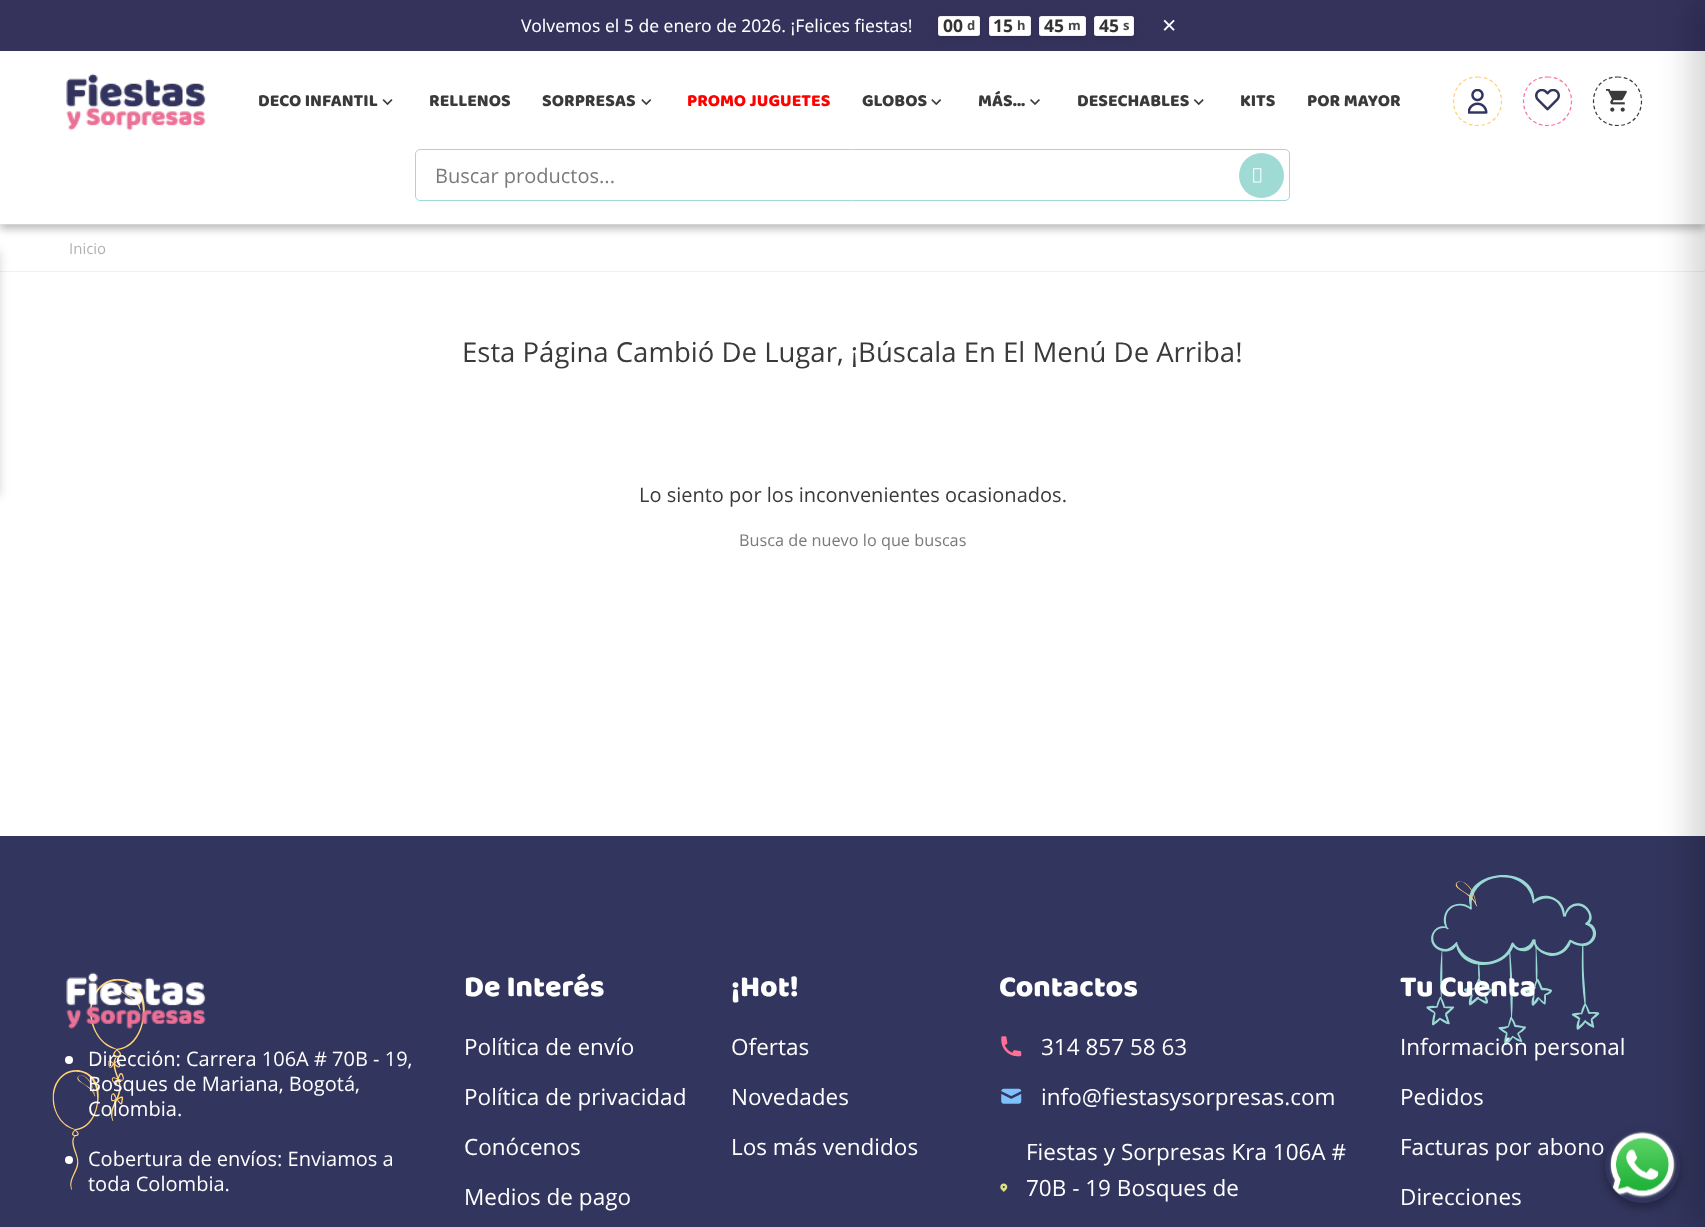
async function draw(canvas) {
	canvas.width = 1705;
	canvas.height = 1227;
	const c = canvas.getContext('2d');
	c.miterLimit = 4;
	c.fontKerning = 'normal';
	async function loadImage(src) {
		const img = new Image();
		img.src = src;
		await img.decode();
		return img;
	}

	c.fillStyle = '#fff';
	c.fillRect(0, 0, 1705, 1227);
	c.fillStyle = '#00000026';
	c.filter = 'blur(4px)';
	c.beginPath();
	c.rect(0, 55, 1705, 174);
	c.fill();
	c.filter = 'none';
	c.fillStyle = '#f1f1f0';
	c.fillRect(0, 224, 1705, 1);
	c.fillStyle = '#00000026';
	c.filter = 'blur(4px)';
	c.beginPath();
	c.rect(0, 55, 1705, 173);
	c.fill();
	c.filter = 'none';
	c.fillStyle = '#35325c';
	c.fillRect(0, 0, 1705, 51);
	c.font = '17.5px Noto Sans';
	c.fillStyle = '#fff';
	c.fillText('Volvemos el 5 de enero de 2026. ¡Felices fiestas!', 521, 32);
	c.fillStyle = '#0000001f';
	c.filter = 'blur(2px)';
	c.beginPath();
	c.roundRect(938, 18, 42, 20, 2.5);
	c.fill();
	c.filter = 'none';
	c.fillStyle = '#fff';
	c.beginPath();
	c.roundRect(938, 16, 42, 20, 2.5);
	c.fill();
	c.strokeStyle = '#0000000f';
	c.strokeRect(938.5, 16.5, 41, 19);
	c.font = 'bold 17.5px Noto Sans';
	c.fillStyle = '#333';
	c.fillText('00', 943, 32);
	c.font = 'bold 13px Noto Sans';
	c.fillStyle = '#474747';
	c.fillText('d', 967, 30);
	c.fillStyle = '#0000001f';
	c.filter = 'blur(2px)';
	c.beginPath();
	c.roundRect(989, 18, 42, 20, 2.5);
	c.fill();
	c.filter = 'none';
	c.fillStyle = '#fff';
	c.beginPath();
	c.roundRect(989, 16, 42, 20, 2.5);
	c.fill();
	c.strokeRect(989.5, 16.5, 41, 19);
	c.font = 'bold 17.5px Noto Sans';
	c.fillStyle = '#333';
	c.fillText('15', 993, 32);
	c.font = 'bold 13px Noto Sans';
	c.fillStyle = '#474747';
	c.fillText('h', 1017, 30);
	c.fillStyle = '#0000001f';
	c.filter = 'blur(2px)';
	c.beginPath();
	c.roundRect(1039, 18, 47, 20, 2.5);
	c.fill();
	c.filter = 'none';
	c.fillStyle = '#fff';
	c.beginPath();
	c.roundRect(1039, 16, 47, 20, 2.5);
	c.fill();
	c.strokeRect(1039.5, 16.5, 46, 19);
	c.font = 'bold 17.5px Noto Sans';
	c.fillStyle = '#333';
	c.fillText('45', 1044, 32);
	c.font = 'bold 13px Noto Sans';
	c.fillStyle = '#474747';
	c.fillText('m', 1068, 30);
	c.fillStyle = '#0000001f';
	c.filter = 'blur(2px)';
	c.beginPath();
	c.roundRect(1094, 18, 40, 20, 2.5);
	c.fill();
	c.filter = 'none';
	c.fillStyle = '#fff';
	c.beginPath();
	c.roundRect(1094, 16, 40, 20, 2.5);
	c.fill();
	c.strokeRect(1094.5, 16.5, 39, 19);
	c.font = 'bold 17.5px Noto Sans';
	c.fillStyle = '#333';
	c.fillText('45', 1099, 32);
	c.font = 'bold 13px Noto Sans';
	c.fillStyle = '#474747';
	c.fillText('s', 1123, 30);
	c.font = '25px Noto Sans';
	c.fillStyle = '#fff';
	c.fillText('×', 1162, 34);
	c.fillRect(0, 51, 1705, 173);
	c.beginPath();
	c.moveTo(1617.5, 77);
	c.bezierCurveTo(1649.5, 77, 1649.5, 125.5, 1617.5, 125.5);
	c.bezierCurveTo(1585.5, 125.5, 1585.5, 77, 1617.5, 77);
	c.closePath();
	c.strokeStyle = '#3a3a3a';
	c.lineWidth = 1.2;
	c.setLineDash([3.75, 2.5]);
	c.stroke();
	c.fillStyle = '#32355d';
	c.fillRect(0, 836, 1705, 391);
	c.save();
	c.beginPath();
	c.moveTo(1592, 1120);
	c.lineTo(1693, 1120);
	c.lineTo(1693, 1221);
	c.lineTo(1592, 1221);
	c.closePath();
	c.moveTo(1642.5, 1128);
	c.bezierCurveTo(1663, 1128, 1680, 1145, 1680, 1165.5);
	c.bezierCurveTo(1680, 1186, 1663, 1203, 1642.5, 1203);
	c.bezierCurveTo(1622, 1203, 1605, 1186, 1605, 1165.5);
	c.bezierCurveTo(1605, 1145, 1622, 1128, 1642.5, 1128);
	c.closePath();
	c.clip('evenodd');
	c.fillStyle = '#0000004d';
	c.filter = 'blur(4px)';
	c.beginPath();
	c.roundRect(1605, 1133, 75, 75, 37.5);
	c.fill();
	c.filter = 'none';
	c.restore();
	c.drawImage(await loadImage('img10.png'), 1609, 1131, 68, 68);
	c.fillStyle = '#f1f1f0';
	c.fillRect(0, 271, 1705, 1);
	c.fillStyle = '#00000029';
	c.filter = 'blur(16px)';
	c.beginPath();
	c.rect(1690, 0, 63, 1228);
	c.fill();
	c.filter = 'none';
	c.drawImage(await loadImage('img1.png'), 66, 73, 140, 58);
	c.font = '17.5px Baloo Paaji';
	c.fillStyle = '#3a3a3a';
	c.fillText('DECO INFANTIL', 258, 106);
	c.drawImage(await loadImage('img2.png'), 382, 99, 11, 7);
	c.fillText('RELLENOS', 429, 106);
	c.fillText('SORPRESAS', 542, 106);
	c.drawImage(await loadImage('img3.png'), 641, 99, 11, 7);
	c.fillStyle = '#f00';
	c.fillText('PROMO JUGUETES', 687, 106);
	c.fillStyle = '#3a3a3a';
	c.fillText('GLOBOS', 862, 106);
	c.drawImage(await loadImage('img3.png'), 931, 99, 11, 7);
	c.fillText('MÁS...', 978, 106);
	c.drawImage(await loadImage('img4.png'), 1030, 99, 10, 6);
	c.fillText('DESECHABLES', 1077, 106);
	c.drawImage(await loadImage('img5.png'), 1193, 99, 11, 7);
	c.fillText('KITS', 1240, 106);
	c.fillText('POR MAYOR', 1307, 106);
	c.beginPath();
	c.moveTo(1477.5, 77);
	c.bezierCurveTo(1509.5, 77, 1509.5, 125.5, 1477.5, 125.5);
	c.bezierCurveTo(1445.5, 125.5, 1445.5, 77, 1477.5, 77);
	c.closePath();
	c.strokeStyle = '#ffd075';
	c.stroke();
	c.drawImage(await loadImage('img6.png'), 1468, 89, 20, 25);
	c.beginPath();
	c.moveTo(1547.5, 77);
	c.bezierCurveTo(1579.5, 77, 1579.5, 125.5, 1547.5, 125.5);
	c.bezierCurveTo(1515.5, 125.5, 1515.5, 77, 1547.5, 77);
	c.closePath();
	c.strokeStyle = '#ff6f96';
	c.stroke();
	c.drawImage(await loadImage('img7.png'), 1535, 89, 25, 22);
	c.drawImage(await loadImage('img8.png'), 1606, 89, 21, 23);
	c.beginPath();
	c.roundRect(415.5, 149.5, 874, 51, 4.5);
	c.strokeStyle = '#9fdad5';
	c.lineWidth = 1;
	c.setLineDash([]);
	c.stroke();
	c.font = '20px Open Sans';
	c.fillStyle = '#7a7a7a';
	c.fillText('Buscar productos...', 435, 183);
	c.fillStyle = '#9fdad5';
	c.beginPath();
	c.arc(1261.5, 175.5, 22.5, 0, 2 * Math.PI);
	c.fill();
	c.drawImage(await loadImage('img9.png'), 1253, 168, 9, 15);
	c.fillStyle = '#00000029';
	c.filter = 'blur(5px)';
	c.beginPath();
	c.rect(-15, 251, 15, 245);
	c.fill();
	c.filter = 'none';
	c.font = '15px Open Sans';
	c.fillStyle = '#b2b2b2';
	c.fillText('Inicio', 69, 254);
	c.font = '27.5px Open Sans';
	c.fillStyle = '#3a3a3a';
	c.fillText('Esta Página Cambió De Lugar, ¡Búscala En El Menú De Arriba!', 462, 362);
	c.font = '20px Open Sans';
	c.fillText('Lo siento por los inconvenientes ocasionados.', 639, 502);
	c.font = '16.25px Open Sans';
	c.fillStyle = '#7a7a7a';
	c.fillText('Busca de nuevo lo que buscas', 739, 546);
	c.drawImage(await loadImage('img12.png'), 90, 978, 55, 143);
	c.drawImage(await loadImage('img11.png'), 52, 1070, 47, 120);
	c.drawImage(await loadImage('img13.png'), 1426, 875, 174, 170);
	c.drawImage(await loadImage('img14.png'), 66, 972, 140, 57);
	c.fillStyle = '#fff';
	c.beginPath();
	c.arc(69, 1060, 4, 0, 2 * Math.PI);
	c.fill();
	c.font = '20px Open Sans';
	for (const [text, x, y] of [
		['Dirección: Carrera 106A # 70B - 19,', 88, 1066],
		['Bosques de Mariana, Bogotá,', 88, 1091],
		['Colombia.', 88, 1116],
	]) {
		c.fillText(text, x, y);
	}
	c.beginPath();
	c.arc(69, 1160, 4, 0, 2 * Math.PI);
	c.fill();
	c.fillText('Cobertura de envíos: Enviamos a', 88, 1166);
	c.fillText('toda Colombia.', 88, 1191);
	c.font = '30px Baloo Paaji';
	c.fillText('De Interés', 464, 996);
	c.font = '22.5px Open Sans';
	for (const [text, x, y] of [
		['Política de envío', 464, 1055],
		['Política de privacidad', 464, 1105],
		['Conócenos', 464, 1155],
		['Medios de pago', 464, 1205],
	]) {
		c.fillText(text, x, y);
	}
	c.font = '30px Baloo Paaji';
	c.fillText('¡Hot!', 731, 996);
	c.font = '22.5px Open Sans';
	for (const [text, x, y] of [
		['Ofertas', 731, 1055],
		['Novedades', 731, 1105],
		['Los más vendidos', 731, 1155],
	]) {
		c.fillText(text, x, y);
	}
	c.font = '30px Baloo Paaji';
	c.fillText('Contactos', 999, 996);
	c.drawImage(await loadImage('img15.png'), 1001, 1036, 21, 21);
	c.font = '22.5px Open Sans';
	c.fillText('314 857 58 63', 1041, 1055);
	c.drawImage(await loadImage('img16.png'), 1001, 1088, 21, 16);
	c.fillText('info@fiestasysorpresas.com', 1041, 1105);
	c.drawImage(await loadImage('img17.png'), 1000, 1183, 8, 9);
	c.fillText('Fiestas y Sorpresas Kra 106A #', 1026, 1160);
	c.fillText('70B - 19 Bosques de', 1026, 1196);
	c.font = '30px Baloo Paaji';
	c.fillText('Tu Cuenta', 1400, 996);
	c.font = '22.5px Open Sans';
	for (const [text, x, y] of [
		['Información personal', 1400, 1055],
		['Pedidos', 1400, 1105],
		['Facturas por abono', 1400, 1155],
		['Direcciones', 1400, 1205],
	]) {
		c.fillText(text, x, y);
	}
}

draw(document.querySelector('canvas'));
